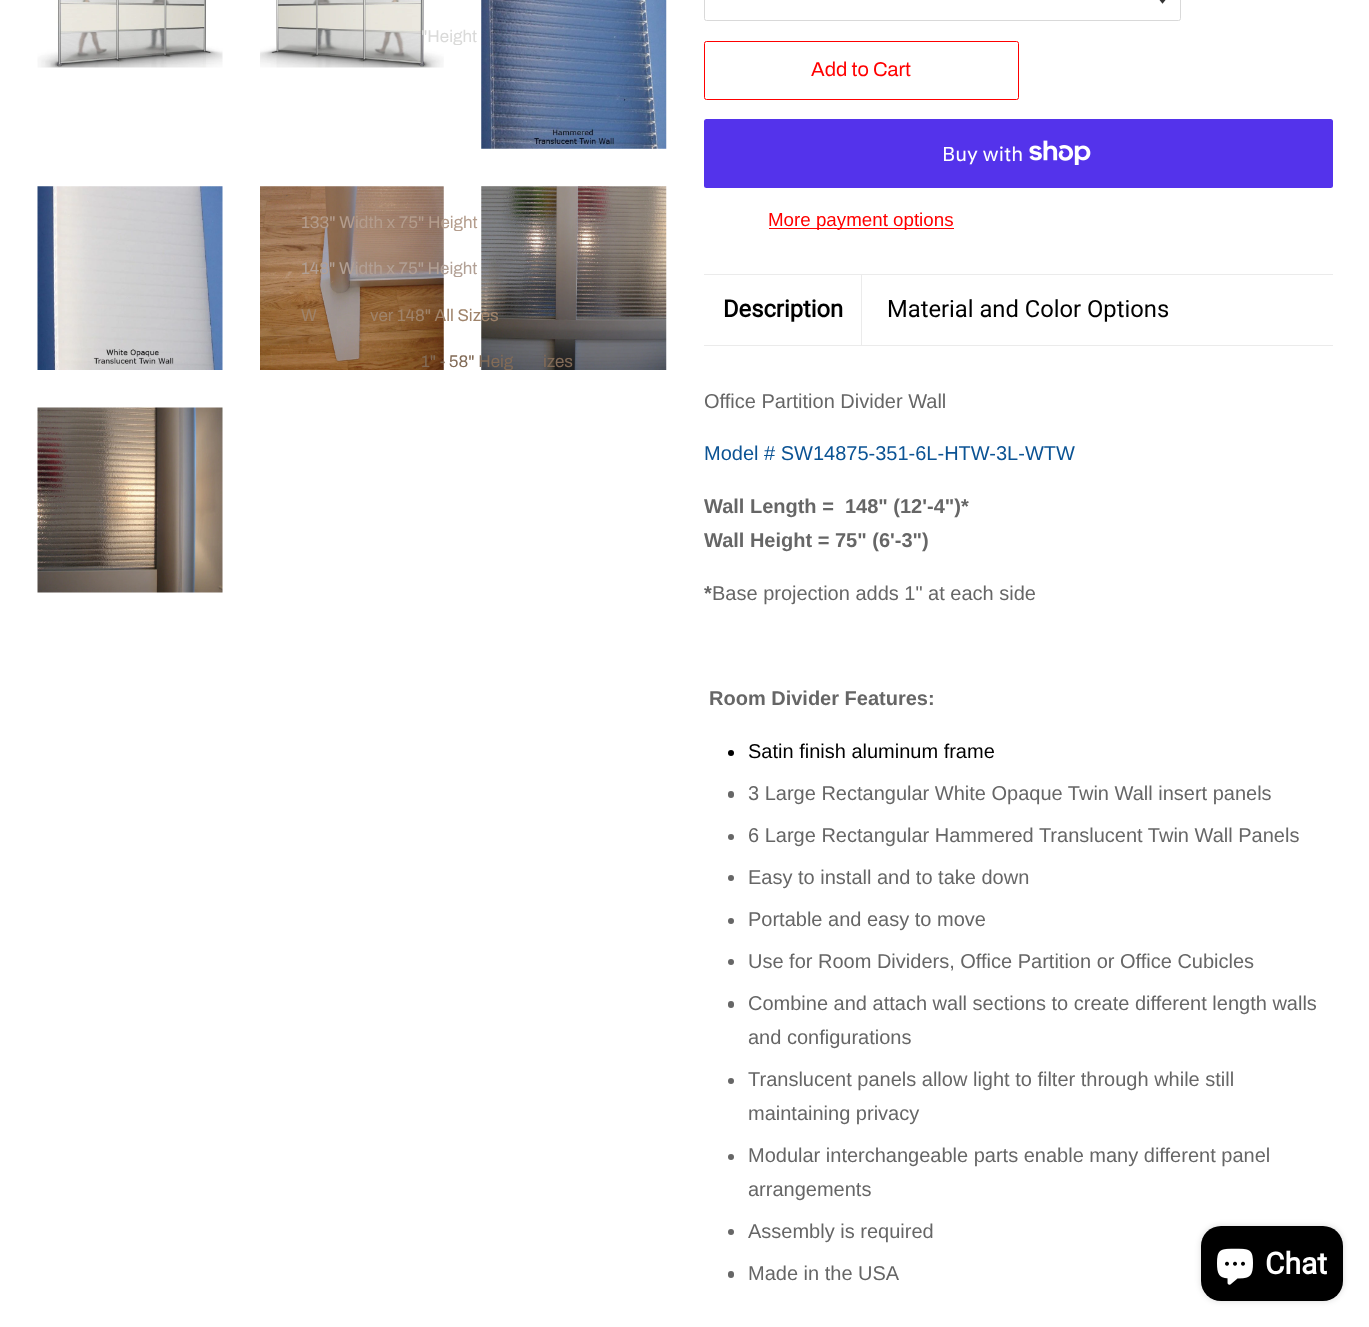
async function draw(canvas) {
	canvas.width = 1369;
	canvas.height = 1327;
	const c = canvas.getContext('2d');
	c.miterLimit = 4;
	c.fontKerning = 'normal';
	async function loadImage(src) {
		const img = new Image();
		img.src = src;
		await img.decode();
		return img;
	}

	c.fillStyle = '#fff';
	c.fillRect(0, 0, 1369, 1327);
	c.drawImage(await loadImage('img2.png'), 260, 0, 184, 68);
	c.font = '17px Archivo';
	c.fillStyle = '#dadad9';
	c.fillText('"Height', 421, 42);
	c.drawImage(await loadImage('img5.png'), 260, 186, 184, 184);
	c.fillStyle = '#b49d8d';
	c.fillText('133" Width x 75" Height', 301, 228);
	c.fillStyle = '#b2a095';
	c.fillText('148" Width x 75" Height', 301, 274);
	c.fillStyle = '#9f836a';
	c.fillText('W', 301, 321);
	c.drawImage(await loadImage('img6.png'), 481, 186, 186, 184);
	c.fillText('ver 148" All Sizes', 370, 321);
	c.fillStyle = '#826b57';
	c.fillText('1" - 58" Heig', 421, 367);
	c.fillText('izes', 543, 367);
	c.drawImage(await loadImage('img1.png'), 37, 0, 186, 68);
	c.drawImage(await loadImage('img3.png'), 481, 0, 186, 149);
	c.drawImage(await loadImage('img4.png'), 37, 186, 186, 184);
	c.drawImage(await loadImage('img7.png'), 37, 407, 186, 186);
	c.drawImage(await loadImage('img8.png'), 1159, 0, 7, 4);
	c.beginPath();
	c.roundRect(704.5, -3.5, 476, 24, 2);
	c.strokeStyle = '#d9d9d9';
	c.stroke();
	c.beginPath();
	c.roundRect(704.5, 41.5, 314, 58, 2);
	c.strokeStyle = '#f00';
	c.stroke();
	c.font = '20px Archivo';
	c.fillStyle = '#f00';
	c.fillText('Add to Cart', 811, 76);
	c.fillStyle = '#5433eb';
	c.beginPath();
	c.roundRect(704, 119, 629, 69, 2.5);
	c.fill();
	c.font = '20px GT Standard';
	c.fillStyle = '#fff';
	c.fillText('Buy with', 942, 161);
	c.drawImage(await loadImage('img9.png'), 1029, 140, 62, 25);
	c.fillStyle = '#f00';
	c.fillRect(769, 228, 185, 1);
	c.font = '18.75px Arimo';
	c.fillText('More payment options', 768, 226);
	for (const [x, y, w, h, color] of [
		[704, 274, 629, 1, '#ebebeb'],
		[704, 345, 629, 1, '#ebebeb'],
		[861, 275, 1, 70, '#ebebeb'],
	]) {
		c.fillStyle = color;
		c.fillRect(x, y, w, h);
	}
	c.font = 'bold 23.75px Roboto';
	c.fillStyle = '#000';
	c.fillText('Description', 723, 317);
	c.font = '23.75px Roboto';
	c.fillText('Material and Color Options', 887, 317);
	c.font = '20px Arimo';
	c.fillStyle = '#666';
	c.fillText('Office Partition Divider Wall', 704, 408);
	c.fillStyle = '#0b5394';
	c.fillText('Model # SW14875-351-6L-HTW-3L-WTW', 704, 460);
	c.font = 'bold 20px Arimo';
	c.fillStyle = '#666';
	for (const [text, x, y] of [
		['Wall Length =  148" (12\'-4")*', 704, 513],
		['Wall Height = 75" (6\'-3")', 704, 547],
		['*', 704, 600],
	]) {
		c.fillText(text, x, y);
	}
	c.font = '20px Arimo';
	c.fillText('Base projection adds 1" at each side', 712, 600);
	c.font = 'bold 20px Arimo';
	c.fillText('Room Divider Features:', 709, 705);
	c.fillStyle = '#000';
	c.beginPath();
	c.arc(731, 753, 3, 0, 2 * Math.PI);
	c.fill();
	c.font = '20px Arimo';
	c.fillText('Satin finish aluminum frame', 748, 758);
	c.fillStyle = '#666';
	c.beginPath();
	c.roundRect(728, 791, 6, 7, 3);
	c.fill();
	c.fillText('3 Large Rectangular White Opaque Twin Wall insert panels', 748, 800);
	c.beginPath();
	c.arc(731, 837, 3, 0, 2 * Math.PI);
	c.fill();
	c.fillText('6 Large Rectangular Hammered Translucent Twin Wall Panels', 748, 842);
	c.beginPath();
	c.arc(731, 878, 3, 0, 2 * Math.PI);
	c.fill();
	c.fillText('Easy to install and to take down', 748, 884);
	c.beginPath();
	c.arc(731, 921, 3, 0, 2 * Math.PI);
	c.fill();
	c.fillText('Portable and easy to move', 748, 926);
	c.beginPath();
	c.arc(731, 962, 3, 0, 2 * Math.PI);
	c.fill();
	c.fillText('Use for Room Dividers, Office Partition or Office Cubicles', 748, 968);
	c.beginPath();
	c.roundRect(728, 1001, 6, 7, 3);
	c.fill();
	c.fillText('Combine and attach wall sections to create different length walls', 748, 1010);
	c.fillText('and configurations', 748, 1044);
	c.beginPath();
	c.arc(731, 1081, 3, 0, 2 * Math.PI);
	c.fill();
	c.fillText('Translucent panels allow light to filter through while still', 748, 1086);
	c.fillText('maintaining privacy', 748, 1120);
	c.beginPath();
	c.arc(731, 1157, 3, 0, 2 * Math.PI);
	c.fill();
	c.fillText('Modular interchangeable parts enable many different panel', 748, 1162);
	c.fillText('arrangements', 748, 1196);
	c.beginPath();
	c.arc(731, 1232, 3, 0, 2 * Math.PI);
	c.fill();
	c.fillText('Assembly is required', 748, 1238);
	c.beginPath();
	c.roundRect(728, 1271, 6, 7, 3);
	c.fill();
	c.fillText('Made in the USA', 748, 1280);
	c.fillStyle = '#00000026';
	c.filter = 'blur(3px)';
	c.beginPath();
	c.roundRect(1201, 1226, 142, 75, 20);
	c.fill();
	c.filter = 'none';
	c.fillStyle = '#000';
	c.beginPath();
	c.roundRect(1201, 1226, 142, 75, 20);
	c.fill();
	c.drawImage(await loadImage('img10.png'), 1217, 1248, 36, 37);
	c.font = 'bold 30px Roboto';
	c.fillStyle = '#fff';
	c.fillText('Chat', 1265, 1274);
}

draw(document.querySelector('canvas'));
